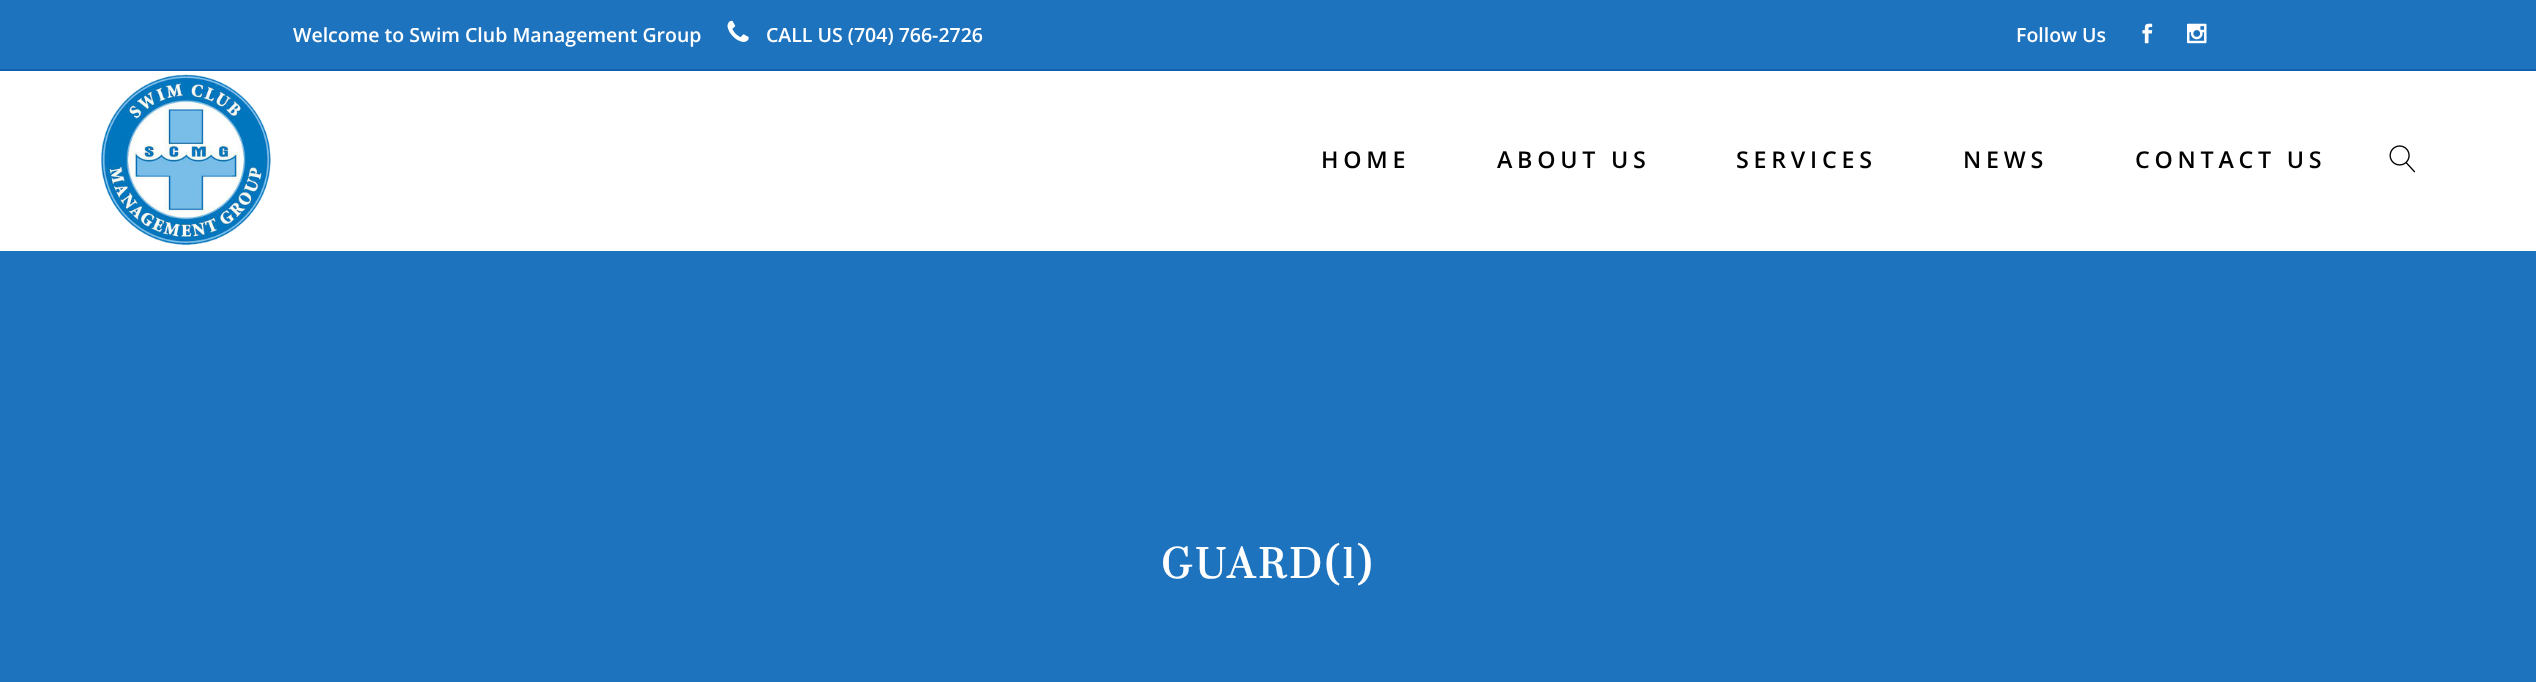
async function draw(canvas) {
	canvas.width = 2536;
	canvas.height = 682;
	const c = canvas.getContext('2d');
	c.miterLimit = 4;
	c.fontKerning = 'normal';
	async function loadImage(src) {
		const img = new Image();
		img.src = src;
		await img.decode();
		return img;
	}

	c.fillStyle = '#fff';
	c.fillRect(0, 0, 2536, 682);
	c.fillStyle = '#1e73be';
	c.fillRect(0, 0, 2536, 69);
	c.fillStyle = '#135faf';
	c.fillRect(0, 69, 2536, 2);
	c.font = '600 19.5px Open Sans';
	c.fillStyle = '#fff';
	c.fillText('Welcome to Swim Club Management Group', 293, 42);
	c.drawImage(await loadImage('img1.png'), 727, 20, 22, 22);
	c.fillText('CALL US (704) 766-2726', 766, 42);
	c.fillText('Follow Us', 2016, 42);
	c.drawImage(await loadImage('img2.png'), 2142, 23, 11, 21);
	c.drawImage(await loadImage('img3.png'), 2187, 23, 20, 21);
	c.drawImage(await loadImage('img4.png'), 101, 74, 170, 172);
	c.letterSpacing = '4.75px';
	c.font = '600 23.25px Open Sans';
	c.fillStyle = '#000';
	for (const [text, x, y] of [
		['HOME', 1321, 168],
		['ABOUT US', 1497, 168],
		['SERVICES', 1736, 168],
		['NEWS', 1963, 168],
		['CONTACT US', 2135, 168],
	]) {
		c.fillText(text, x, y);
	}
	c.drawImage(await loadImage('img5.png'), 2389, 145, 27, 28);
	c.fillStyle = '#1e73be';
	c.fillRect(0, 251, 2536, 431);
	c.letterSpacing = '3.75px';
	c.font = 'bold 37.5px Prata';
	c.fillStyle = '#fff';
	c.fillText('GUARD(1)', 1161, 578);
}

draw(document.querySelector('canvas'));
